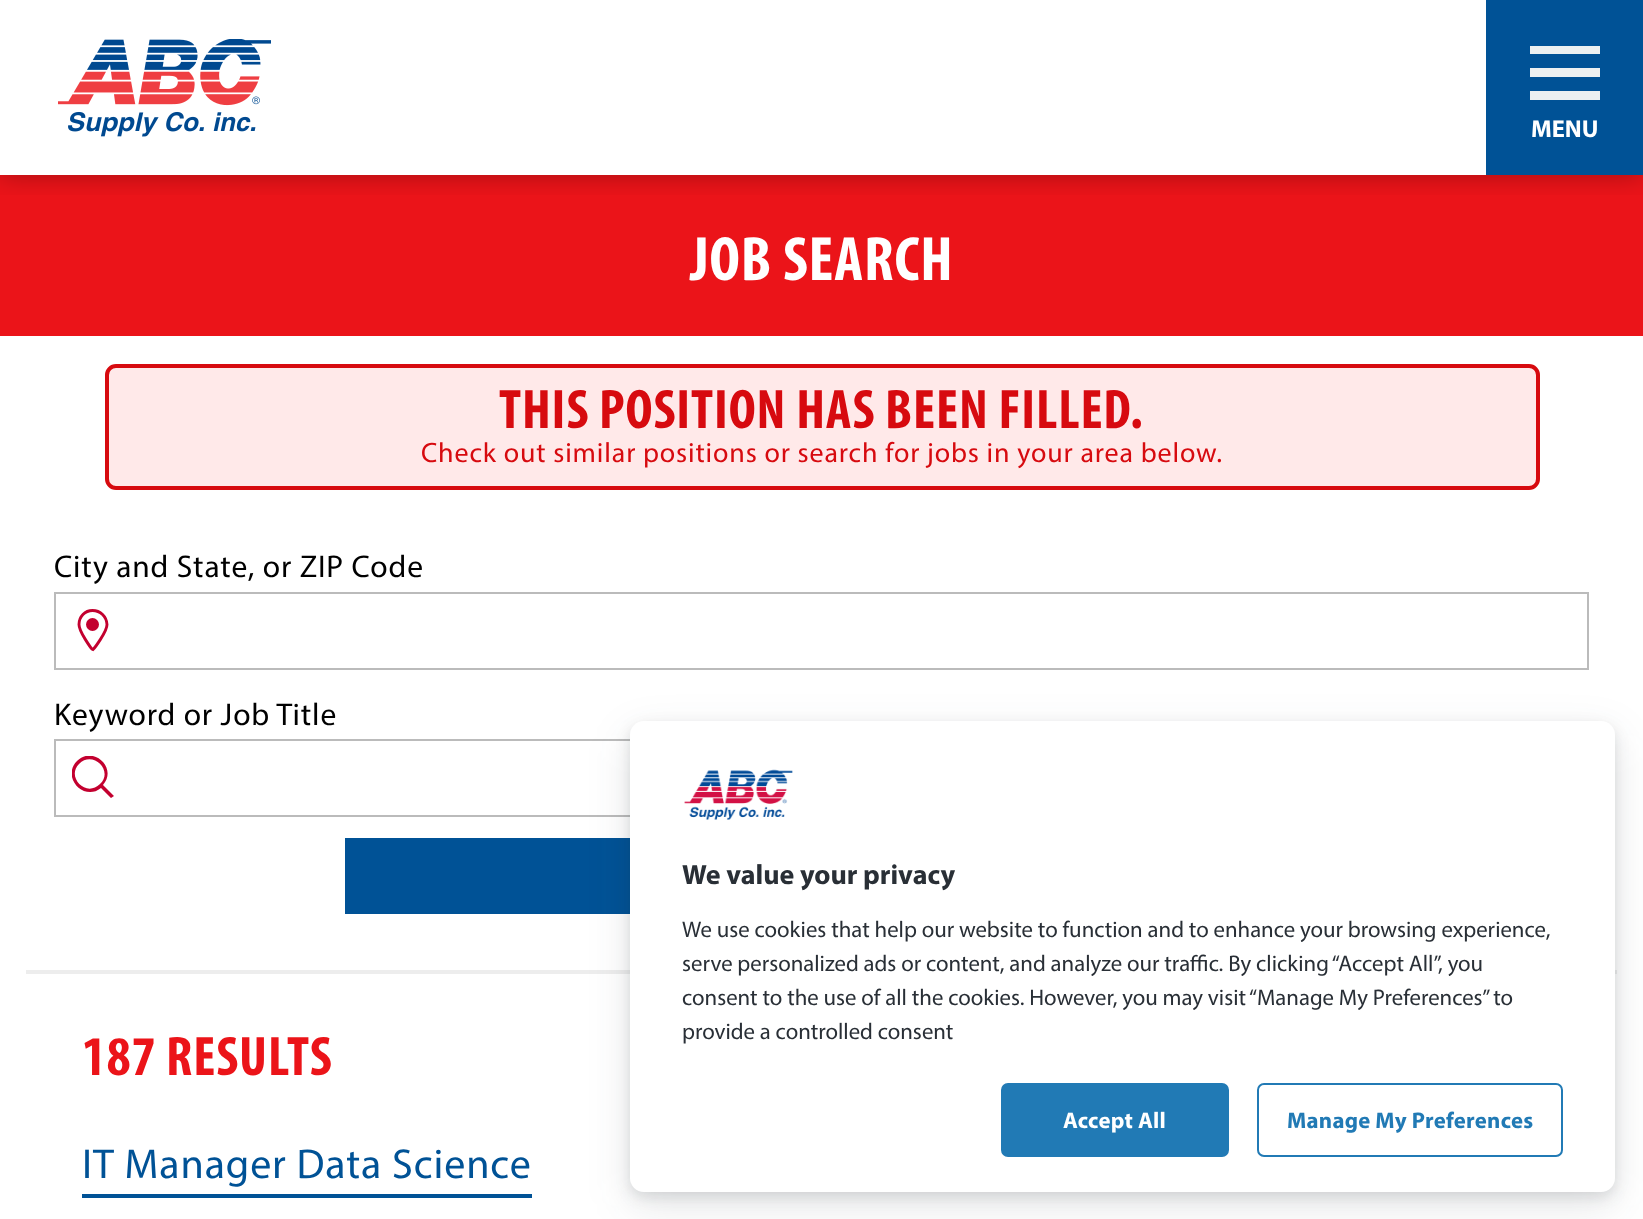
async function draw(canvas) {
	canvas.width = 1643;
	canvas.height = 1219;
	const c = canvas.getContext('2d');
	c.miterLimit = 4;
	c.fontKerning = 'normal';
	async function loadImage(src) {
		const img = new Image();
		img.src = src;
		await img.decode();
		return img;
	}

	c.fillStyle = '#fff';
	c.fillRect(0, 0, 1643, 1219);
	c.fillStyle = '#eb1419';
	c.fillRect(0, 175, 1643, 161);
	c.save();
	c.beginPath();
	c.rect(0, 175, 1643, 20);
	c.clip();
	c.fillStyle = '#0000004d';
	c.filter = 'blur(13px)';
	c.beginPath();
	c.rect(0, 0, 1643, 175);
	c.fill();
	c.filter = 'none';
	c.restore();
	c.drawImage(await loadImage('img1.png'), 58, 39, 213, 98);
	for (const [x, y, w, h, color] of [
		[1486, 0, 157, 175, '#005296'],
		[1530, 46, 70, 8, '#ecf0f1'],
		[1530, 68, 70, 9, '#ecf0f1'],
		[1530, 91, 70, 9, '#ecf0f1'],
	]) {
		c.fillStyle = color;
		c.fillRect(x, y, w, h);
	}
	c.font = 'bold 24.5px Myriad';
	c.fillStyle = '#fff';
	c.fillText('MENU', 1531, 137);
	c.letterSpacing = '0.88px';
	c.font = 'bold 63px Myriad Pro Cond';
	c.fillText('JOB SEARCH', 690, 280);
	c.fillStyle = '#ffe9e9';
	c.beginPath();
	c.roundRect(107, 366, 1431, 122, 9);
	c.fill();
	c.strokeStyle = '#d70a0f';
	c.lineWidth = 4;
	c.stroke();
	c.font = 'bold 56px Myriad Pro Cond';
	c.fillStyle = '#d70a0f';
	c.fillText('THIS POSITION HAS BEEN FILLED.', 499, 428);
	c.font = '28px Myriad';
	c.fillText('Check out similar positions or search for jobs in your area below.', 421, 462);
	c.font = '31.5px Myriad';
	c.fillStyle = '#000';
	c.fillText('City and State, or ZIP Code', 54, 577);
	c.strokeStyle = '#bbb';
	c.lineWidth = 2;
	c.strokeRect(55, 593, 1533, 76);
	c.beginPath();
	c.moveTo(92.5, 610.5);
	c.bezierCurveTo(85, 610.5, 79, 616.5, 79, 624.5);
	c.bezierCurveTo(79, 632, 91.5, 648.5, 92, 649);
	c.lineTo(93, 649.5);
	c.lineTo(93.5, 649);
	c.bezierCurveTo(94, 648.5, 107, 632, 107, 624.5);
	c.bezierCurveTo(106.5, 616.5, 100.5, 610.5, 92.5, 610.5);
	c.closePath();
	c.strokeStyle = '#c3002f';
	c.lineWidth = 2.9;
	c.stroke();
	c.fillStyle = '#c3002f';
	c.beginPath();
	c.arc(92.5, 624.5, 6.5, 0, 2 * Math.PI);
	c.fill();
	c.fillStyle = '#000';
	c.fillText('Keyword or Job Title', 54, 725);
	c.strokeStyle = '#bbb';
	c.lineWidth = 2;
	c.strokeRect(55, 740, 1533, 76);
	c.save();
	c.beginPath();
	c.rect(72, 756, 42, 42);
	c.clip();
	c.fillStyle = '#c3002f';
	c.beginPath();
	c.moveTo(103, 785);
	c.bezierCurveTo(118, 768, 93, 745, 77, 761);
	c.bezierCurveTo(61, 777, 84, 802, 101, 788);
	c.lineTo(111, 798);
	c.lineTo(114, 796);
	c.closePath();
	c.moveTo(100, 784);
	c.bezierCurveTo(86, 798, 66, 777, 79, 764);
	c.bezierCurveTo(93, 750, 114, 771, 100, 784);
	c.closePath();
	c.fill();
	c.restore();
	c.fillStyle = '#005296';
	c.fillRect(345, 838, 285, 76);
	c.fillStyle = '#ededed';
	c.fillRect(26, 970, 1591, 4);
	c.font = 'bold 56px Myriad Pro Cond';
	c.fillStyle = '#eb1419';
	c.fillText('187 RESULTS', 82, 1075);
	c.font = '42px Myriad';
	c.fillStyle = '#005296';
	c.fillText('IT Manager Data Science', 82, 1178);
	c.fillRect(82, 1194, 450, 4);
	c.fillStyle = '#292f3621';
	c.filter = 'blur(7px)';
	c.beginPath();
	c.roundRect(630, 726, 985, 471, 14);
	c.fill();
	c.filter = 'none';
	c.fillStyle = '#292f361f';
	c.filter = 'blur(21px)';
	c.beginPath();
	c.roundRect(630, 735, 985, 471, 14);
	c.fill();
	c.filter = 'none';
	c.fillStyle = '#fff';
	c.beginPath();
	c.roundRect(630, 721, 985, 471, 14);
	c.fill();
	c.drawImage(await loadImage('img2.png'), 684, 769, 109, 51);
	c.letterSpacing = '0px';
	c.font = 'bold 28px Myriad';
	c.fillStyle = '#292f36';
	c.fillText('We value your privacy', 682, 884);
	c.font = '22.75px Myriad';
	for (const [text, x, y] of [
		['We use cookies that help our website to function and to enhance your browsing experience,', 682, 937],
		['serve personalized ads or content, and analyze our traffic. By clicking “Accept All”, you', 682, 971],
		['consent to the use of all the cookies. However, you may visit “Manage My Preferences” to', 682, 1005],
		['provide a controlled consent', 682, 1039],
	]) {
		c.fillText(text, x, y);
	}
	c.fillStyle = '#217ab5';
	c.beginPath();
	c.roundRect(1002, 1084, 226, 72, 6);
	c.fill();
	c.strokeStyle = '#217ab5';
	c.stroke();
	c.letterSpacing = '0.25px';
	c.font = 'bold 22.75px Myriad';
	c.fillStyle = '#fff';
	c.fillText('Accept All', 1063, 1128);
	c.beginPath();
	c.roundRect(1258, 1084, 304, 72, 6);
	c.stroke();
	c.fillStyle = '#217ab5';
	c.fillText('Manage My Preferences', 1287, 1128);
}

draw(document.querySelector('canvas'));
